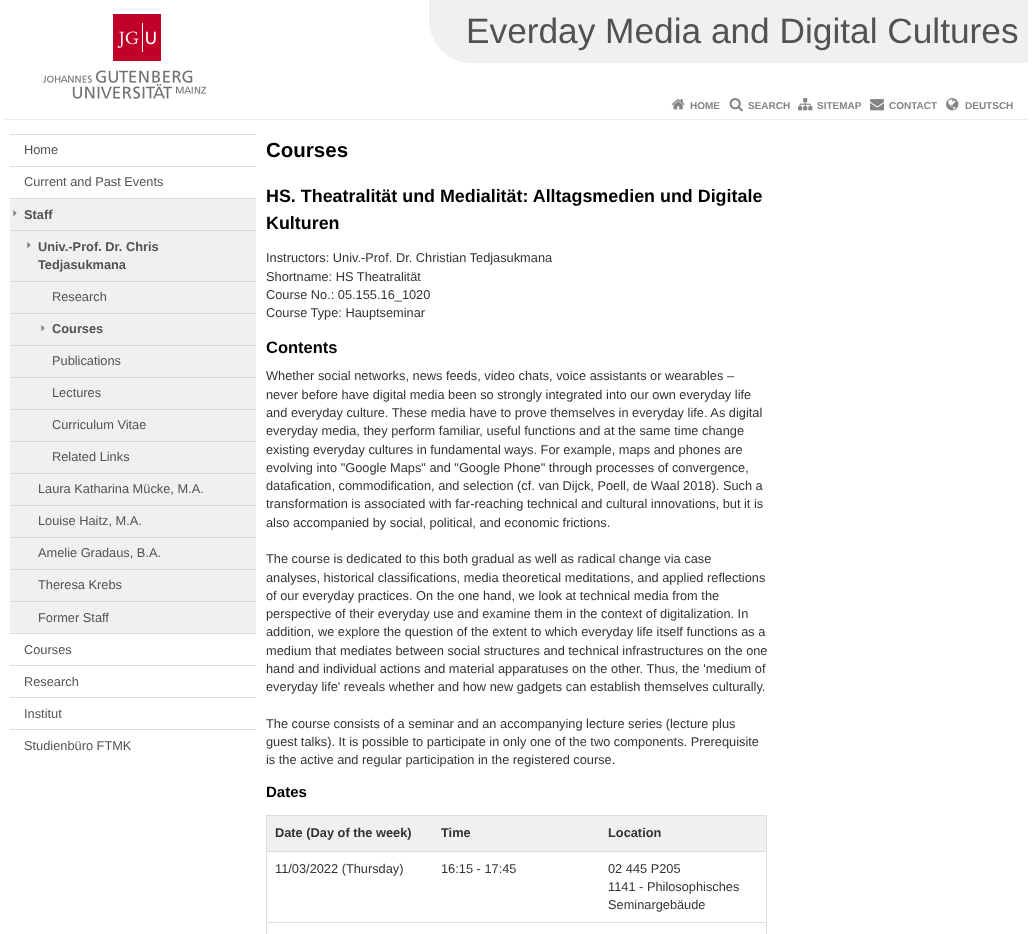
async function draw(canvas) {
	canvas.width = 1033;
	canvas.height = 934;
	const c = canvas.getContext('2d');
	c.miterLimit = 4;
	c.fontKerning = 'normal';
	async function loadImage(src) {
		const img = new Image();
		img.src = src;
		await img.decode();
		return img;
	}

	c.fillStyle = '#fff';
	c.fillRect(0, 0, 1033, 934);
	c.drawImage(await loadImage('img1.png'), 43, 14, 163, 85);
	c.save();
	c.beginPath();
	c.rect(426, 0, 602, 90);
	c.clip();
	c.fillStyle = '#f0f0f0';
	c.beginPath();
	c.moveTo(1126, 63);
	c.lineTo(470, 63);
	c.bezierCurveTo(437, 61, 429, 31, 429, 23);
	c.lineTo(429, 0);
	c.lineTo(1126, 0);
	c.closePath();
	c.fill();
	c.restore();
	c.font = '35.25px Liberation Sans';
	c.fillStyle = '#525252';
	c.fillText('Everday Media and Digital Cultures', 466, 43);
	c.drawImage(await loadImage('img2.png'), 671, 99, 14, 11);
	c.font = 'bold 10px Liberation Sans';
	c.fillStyle = '#848484';
	c.fillText('HOME', 690, 109);
	c.drawImage(await loadImage('img3.png'), 729, 98, 14, 14);
	c.fillText('SEARCH', 748, 109);
	c.drawImage(await loadImage('img4.png'), 798, 98, 15, 13);
	c.fillText('SITEMAP', 817, 109);
	c.drawImage(await loadImage('img5.png'), 870, 99, 14, 12);
	c.fillText('CONTACT', 889, 109);
	c.drawImage(await loadImage('img6.png'), 946, 98, 13, 13);
	c.fillText('DEUTSCH', 965, 109);
	c.fillStyle = '#ebebeb';
	c.fillRect(5, 119, 1023, 1);
	c.fillStyle = '#dadada';
	c.fillRect(10, 134, 246, 1);
	c.font = '12.8px Liberation Sans';
	c.fillStyle = '#525252';
	c.fillText('Home', 24, 154);
	c.fillStyle = '#dadada';
	c.fillRect(10, 166, 246, 1);
	c.fillStyle = '#525252';
	c.fillText('Current and Past Events', 24, 186);
	c.fillStyle = '#f0f0f0';
	c.fillRect(10, 199, 246, 434);
	c.fillStyle = '#dadada';
	c.fillRect(10, 198, 246, 1);
	c.drawImage(await loadImage('img7.png'), 13, 210, 4, 6);
	c.font = 'bold 12.8px Liberation Sans';
	c.fillStyle = '#525252';
	c.fillText('Staff', 24, 219);
	c.fillStyle = '#dadada';
	c.fillRect(10, 230, 246, 1);
	c.drawImage(await loadImage('img7.png'), 27, 242, 4, 6);
	c.fillStyle = '#525252';
	c.fillText('Univ.-Prof. Dr. Chris', 38, 251);
	c.fillText('Tedjasukmana', 38, 269);
	c.fillStyle = '#dadada';
	c.fillRect(10, 281, 246, 1);
	c.font = '12.8px Liberation Sans';
	c.fillStyle = '#525252';
	c.fillText('Research', 52, 301);
	c.fillStyle = '#dadada';
	c.fillRect(10, 313, 246, 1);
	c.drawImage(await loadImage('img7.png'), 41, 325, 4, 6);
	c.font = 'bold 12.8px Liberation Sans';
	c.fillStyle = '#525252';
	c.fillText('Courses', 52, 333);
	c.fillStyle = '#dadada';
	c.fillRect(10, 345, 246, 1);
	c.font = '12.8px Liberation Sans';
	c.fillStyle = '#525252';
	c.fillText('Publications', 52, 365);
	c.fillStyle = '#dadada';
	c.fillRect(10, 377, 246, 1);
	c.fillStyle = '#525252';
	c.fillText('Lectures', 52, 397);
	c.fillStyle = '#dadada';
	c.fillRect(10, 409, 246, 1);
	c.fillStyle = '#525252';
	c.fillText('Curriculum Vitae', 52, 429);
	c.fillStyle = '#dadada';
	c.fillRect(10, 441, 246, 1);
	c.fillStyle = '#525252';
	c.fillText('Related Links', 52, 461);
	c.fillStyle = '#dadada';
	c.fillRect(10, 473, 246, 1);
	c.fillStyle = '#525252';
	c.fillText('Laura Katharina Mücke, M.A.', 38, 493);
	c.fillStyle = '#dadada';
	c.fillRect(10, 505, 246, 1);
	c.fillStyle = '#525252';
	c.fillText('Louise Haitz, M.A.', 38, 525);
	c.fillStyle = '#dadada';
	c.fillRect(10, 537, 246, 1);
	c.fillStyle = '#525252';
	c.fillText('Amelie Gradaus, B.A.', 38, 557);
	c.fillStyle = '#dadada';
	c.fillRect(10, 569, 246, 1);
	c.fillStyle = '#525252';
	c.fillText('Theresa Krebs', 38, 589);
	c.fillStyle = '#dadada';
	c.fillRect(10, 601, 246, 1);
	c.fillStyle = '#525252';
	c.fillText('Former Staff', 38, 622);
	c.fillStyle = '#dadada';
	c.fillRect(10, 633, 246, 1);
	c.fillStyle = '#525252';
	c.fillText('Courses', 24, 654);
	c.fillStyle = '#dadada';
	c.fillRect(10, 665, 246, 1);
	c.fillStyle = '#525252';
	c.fillText('Research', 24, 686);
	c.fillStyle = '#dadada';
	c.fillRect(10, 697, 246, 1);
	c.fillStyle = '#525252';
	c.fillText('Institut', 24, 718);
	c.fillStyle = '#dadada';
	c.fillRect(10, 729, 246, 1);
	c.fillStyle = '#525252';
	c.fillText('Studienbüro FTMK', 24, 750);
	c.font = 'bold 20.5px Liberation Sans';
	c.fillStyle = '#000';
	c.fillText('Courses', 266, 157);
	c.font = 'bold 17.9px Liberation Sans';
	c.fillText('HS. Theatralität und Medialität: Alltagsmedien und Digitale', 266, 202);
	c.fillText('Kulturen', 266, 229);
	c.font = '12.8px Liberation Sans';
	c.fillStyle = '#333';
	for (const [text, x, y] of [
		['Instructors: Univ.-Prof. Dr. Christian Tedjasukmana', 266, 262],
		['Shortname: HS Theatralität', 266, 281],
		['Course No.: 05.155.16_1020', 266, 299],
		['Course Type: Hauptseminar', 266, 317],
	]) {
		c.fillText(text, x, y);
	}
	c.font = 'bold 16.5px Liberation Sans';
	c.fillStyle = '#000';
	c.fillText('Contents', 266, 353);
	c.font = '12.8px Liberation Sans';
	c.fillStyle = '#333';
	for (const [text, x, y] of [
		['Whether social networks, news feeds, video chats, voice assistants or wearables –', 266, 380],
		['never before have digital media been so strongly integrated into our own everyday life', 266, 399],
		['and everyday culture. These media have to prove themselves in everyday life. As digital', 266, 417],
		['everyday media, they perform familiar, useful functions and at the same time change', 266, 435],
		['existing everyday cultures in fundamental ways. For example, maps and phones are', 266, 454],
		['evolving into "Google Maps" and "Google Phone" through processes of convergence,', 266, 472],
		['datafication, commodification, and selection (cf. van Dijck, Poell, de Waal 2018). Such a', 266, 490],
		['transformation is associated with far-reaching technical and cultural innovations, but it is', 266, 508],
		['also accompanied by social, political, and economic frictions.', 266, 527],
		['The course is dedicated to this both gradual as well as radical change via case', 266, 563],
		['analyses, historical classifications, media theoretical meditations, and applied reflections', 266, 582],
		['of our everyday practices. On the one hand, we look at technical media from the', 266, 600],
		['perspective of their everyday use and examine them in the context of digitalization. In', 266, 618],
		['addition, we explore the question of the extent to which everyday life itself functions as a', 266, 636],
		['medium that mediates between social structures and technical infrastructures on the one', 266, 655],
		['hand and individual actions and material apparatuses on the other. Thus, the \'medium of', 266, 673],
		['everyday life\' reveals whether and how new gadgets can establish themselves culturally.', 266, 691],
		['The course consists of a seminar and an accompanying lecture series (lecture plus', 266, 728],
		['guest talks). It is possible to participate in only one of the two components. Prerequisite', 266, 746],
		['is the active and regular participation in the registered course.', 266, 764],
	]) {
		c.fillText(text, x, y);
	}
	c.font = 'bold 15px Liberation Sans';
	c.fillStyle = '#000';
	c.fillText('Dates', 266, 797);
	for (const [x, y, w, h, color] of [
		[266, 815, 501, 1, '#ddd'],
		[766, 815, 1, 119, '#ddd'],
		[266, 815, 1, 119, '#ddd'],
		[267, 816, 499, 35, '#f0f0f0'],
	]) {
		c.fillStyle = color;
		c.fillRect(x, y, w, h);
	}
	c.font = 'bold 12.8px Liberation Sans';
	c.fillStyle = '#333';
	for (const [text, x, y] of [
		['Date (Day of the week)', 275, 837],
		['Time', 441, 837],
		['Location', 608, 837],
	]) {
		c.fillText(text, x, y);
	}
	c.font = '12.8px Liberation Sans';
	c.fillText('11/03/2022 (Thursday)', 275, 873);
	c.fillText('16:15 - 17:45', 441, 873);
	c.fillStyle = '#ddd';
	c.fillRect(266, 851, 501, 1);
	c.fillStyle = '#333';
	for (const [text, x, y] of [
		['02 445 P205', 608, 873],
		['1141 - Philosophisches', 608, 891],
		['Seminargebäude', 608, 909],
	]) {
		c.fillText(text, x, y);
	}
	c.fillStyle = '#ddd';
	c.fillRect(266, 922, 501, 1);
}

draw(document.querySelector('canvas'));
